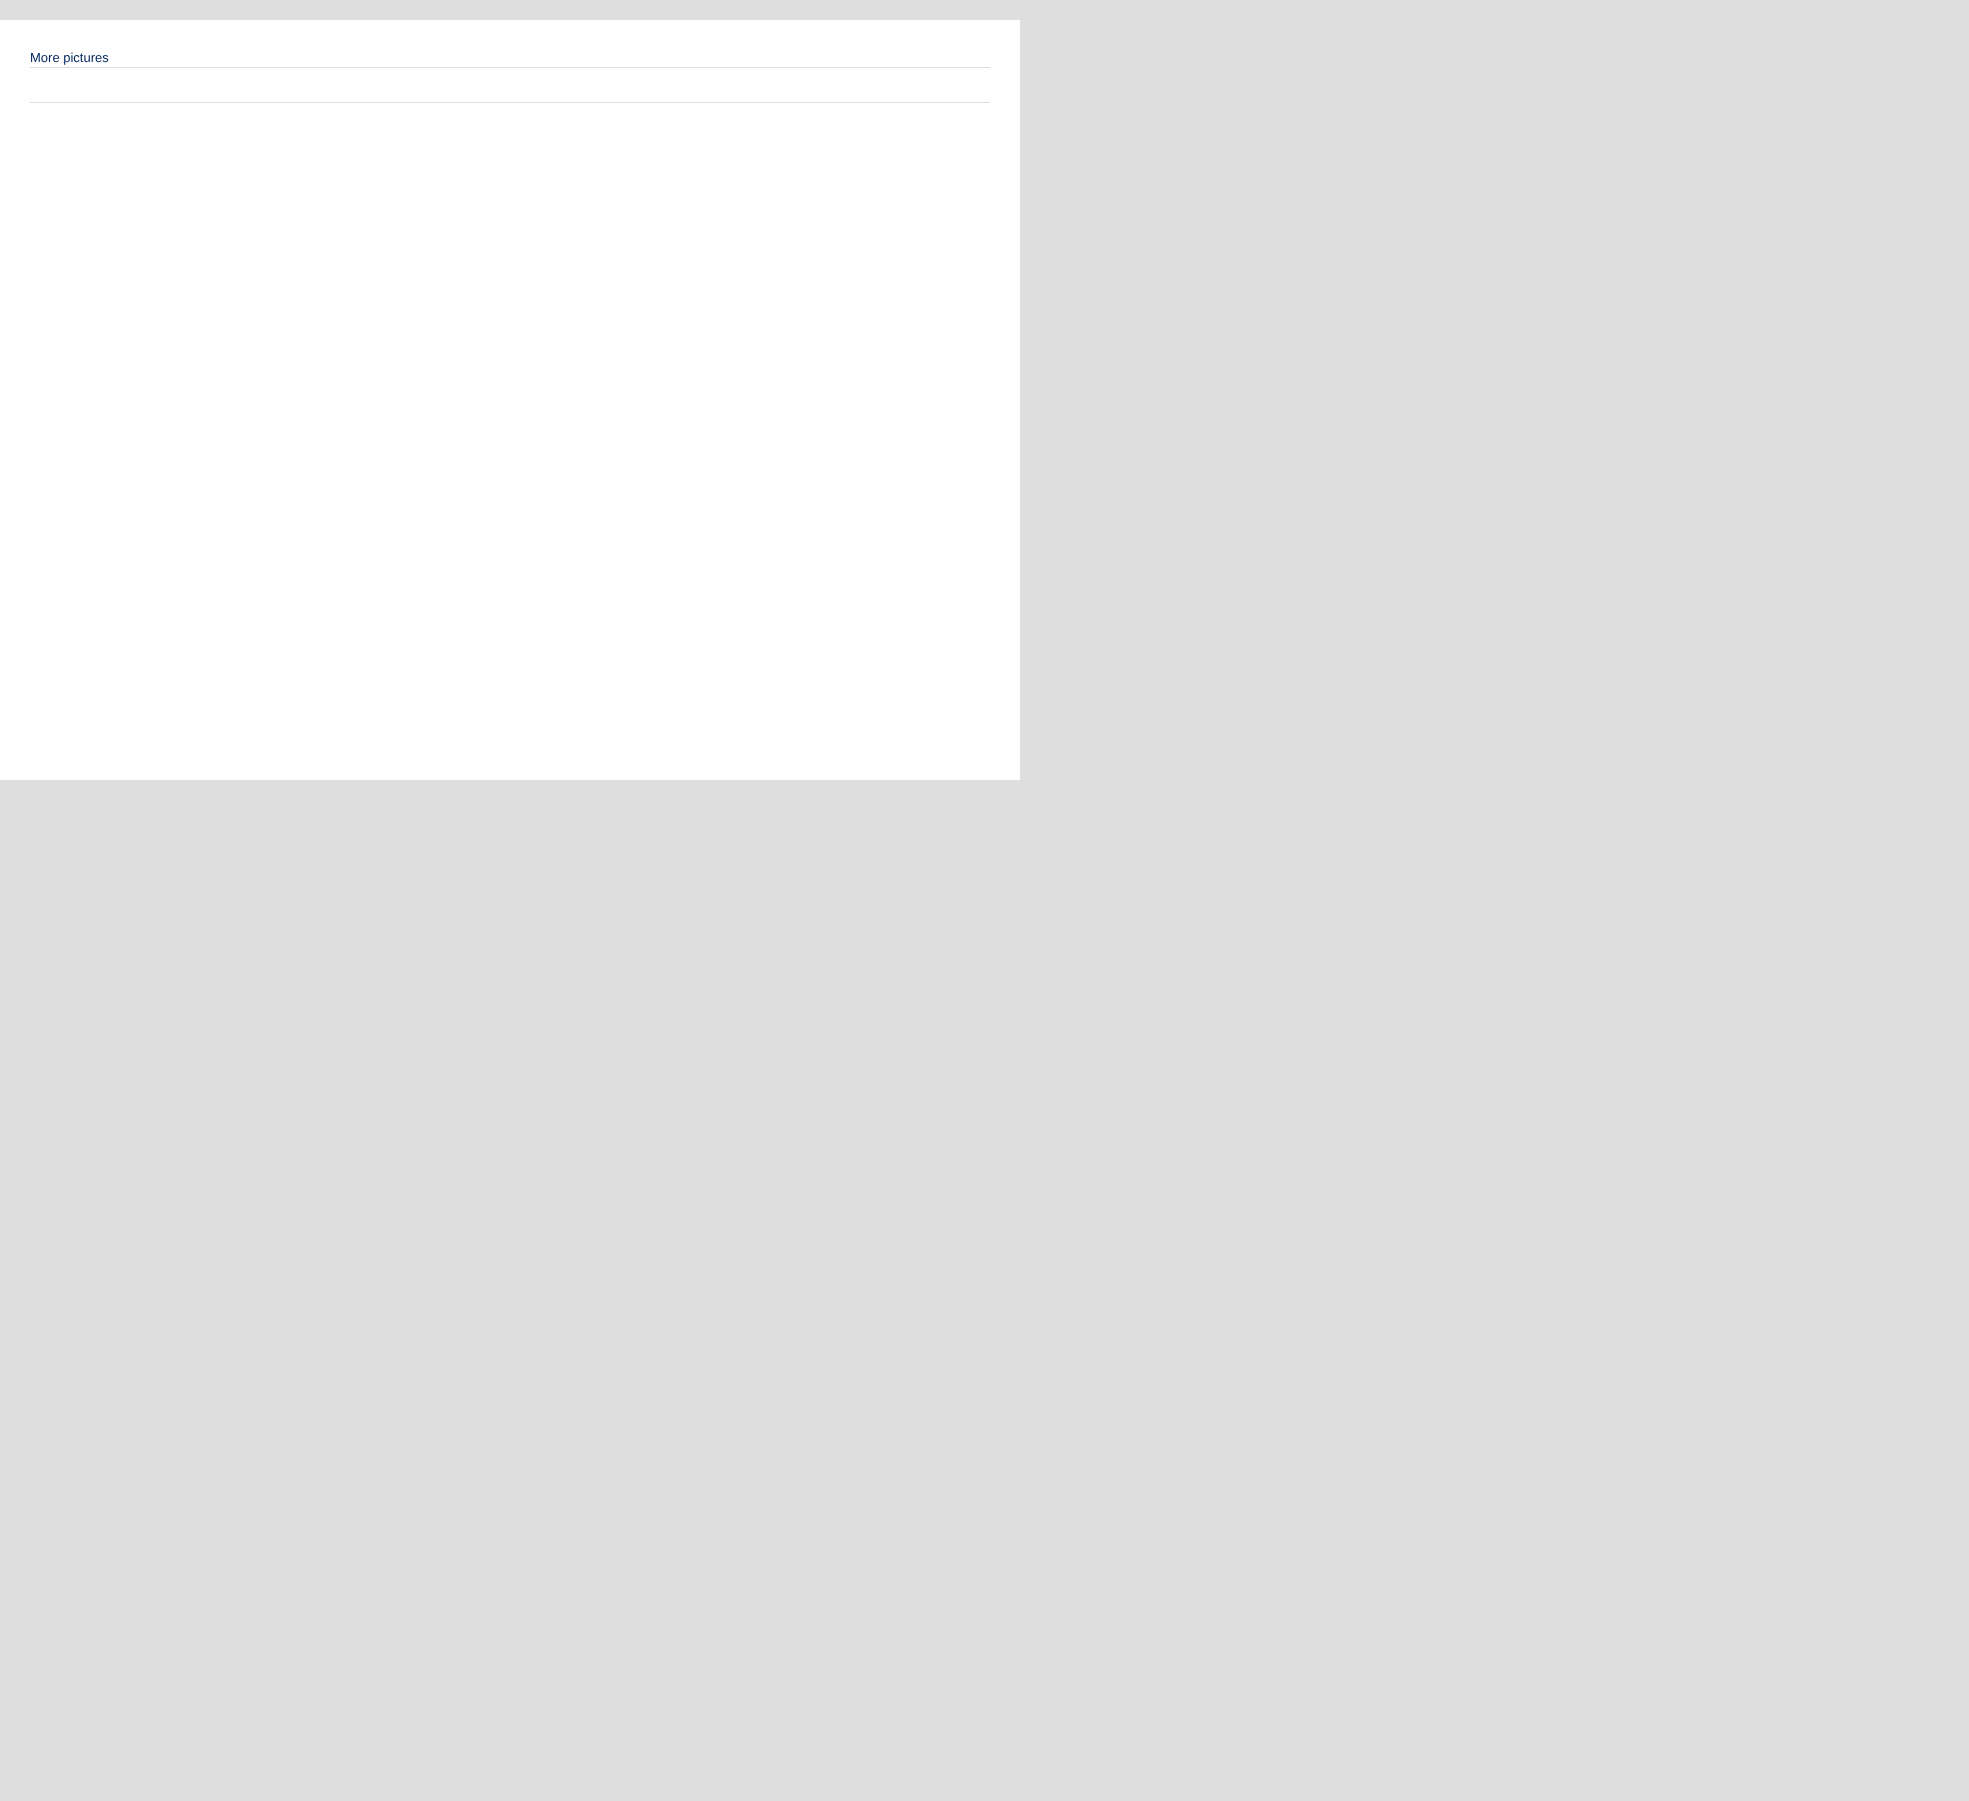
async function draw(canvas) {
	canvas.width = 1969;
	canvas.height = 1801;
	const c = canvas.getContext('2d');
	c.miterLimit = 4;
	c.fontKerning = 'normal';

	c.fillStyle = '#dfdede';
	c.fillRect(0, 0, 1969, 1801);
	c.fillStyle = '#fff';
	c.fillRect(0, 20, 1020, 760);
	c.font = '13px Liberation Sans';
	c.fillStyle = '#00255c';
	c.fillText('More pictures', 30, 62);
	c.fillStyle = '#ddd';
	c.fillRect(30, 67, 960, 1);
	c.fillRect(30, 102, 960, 1);
}

draw(document.querySelector('canvas'));
